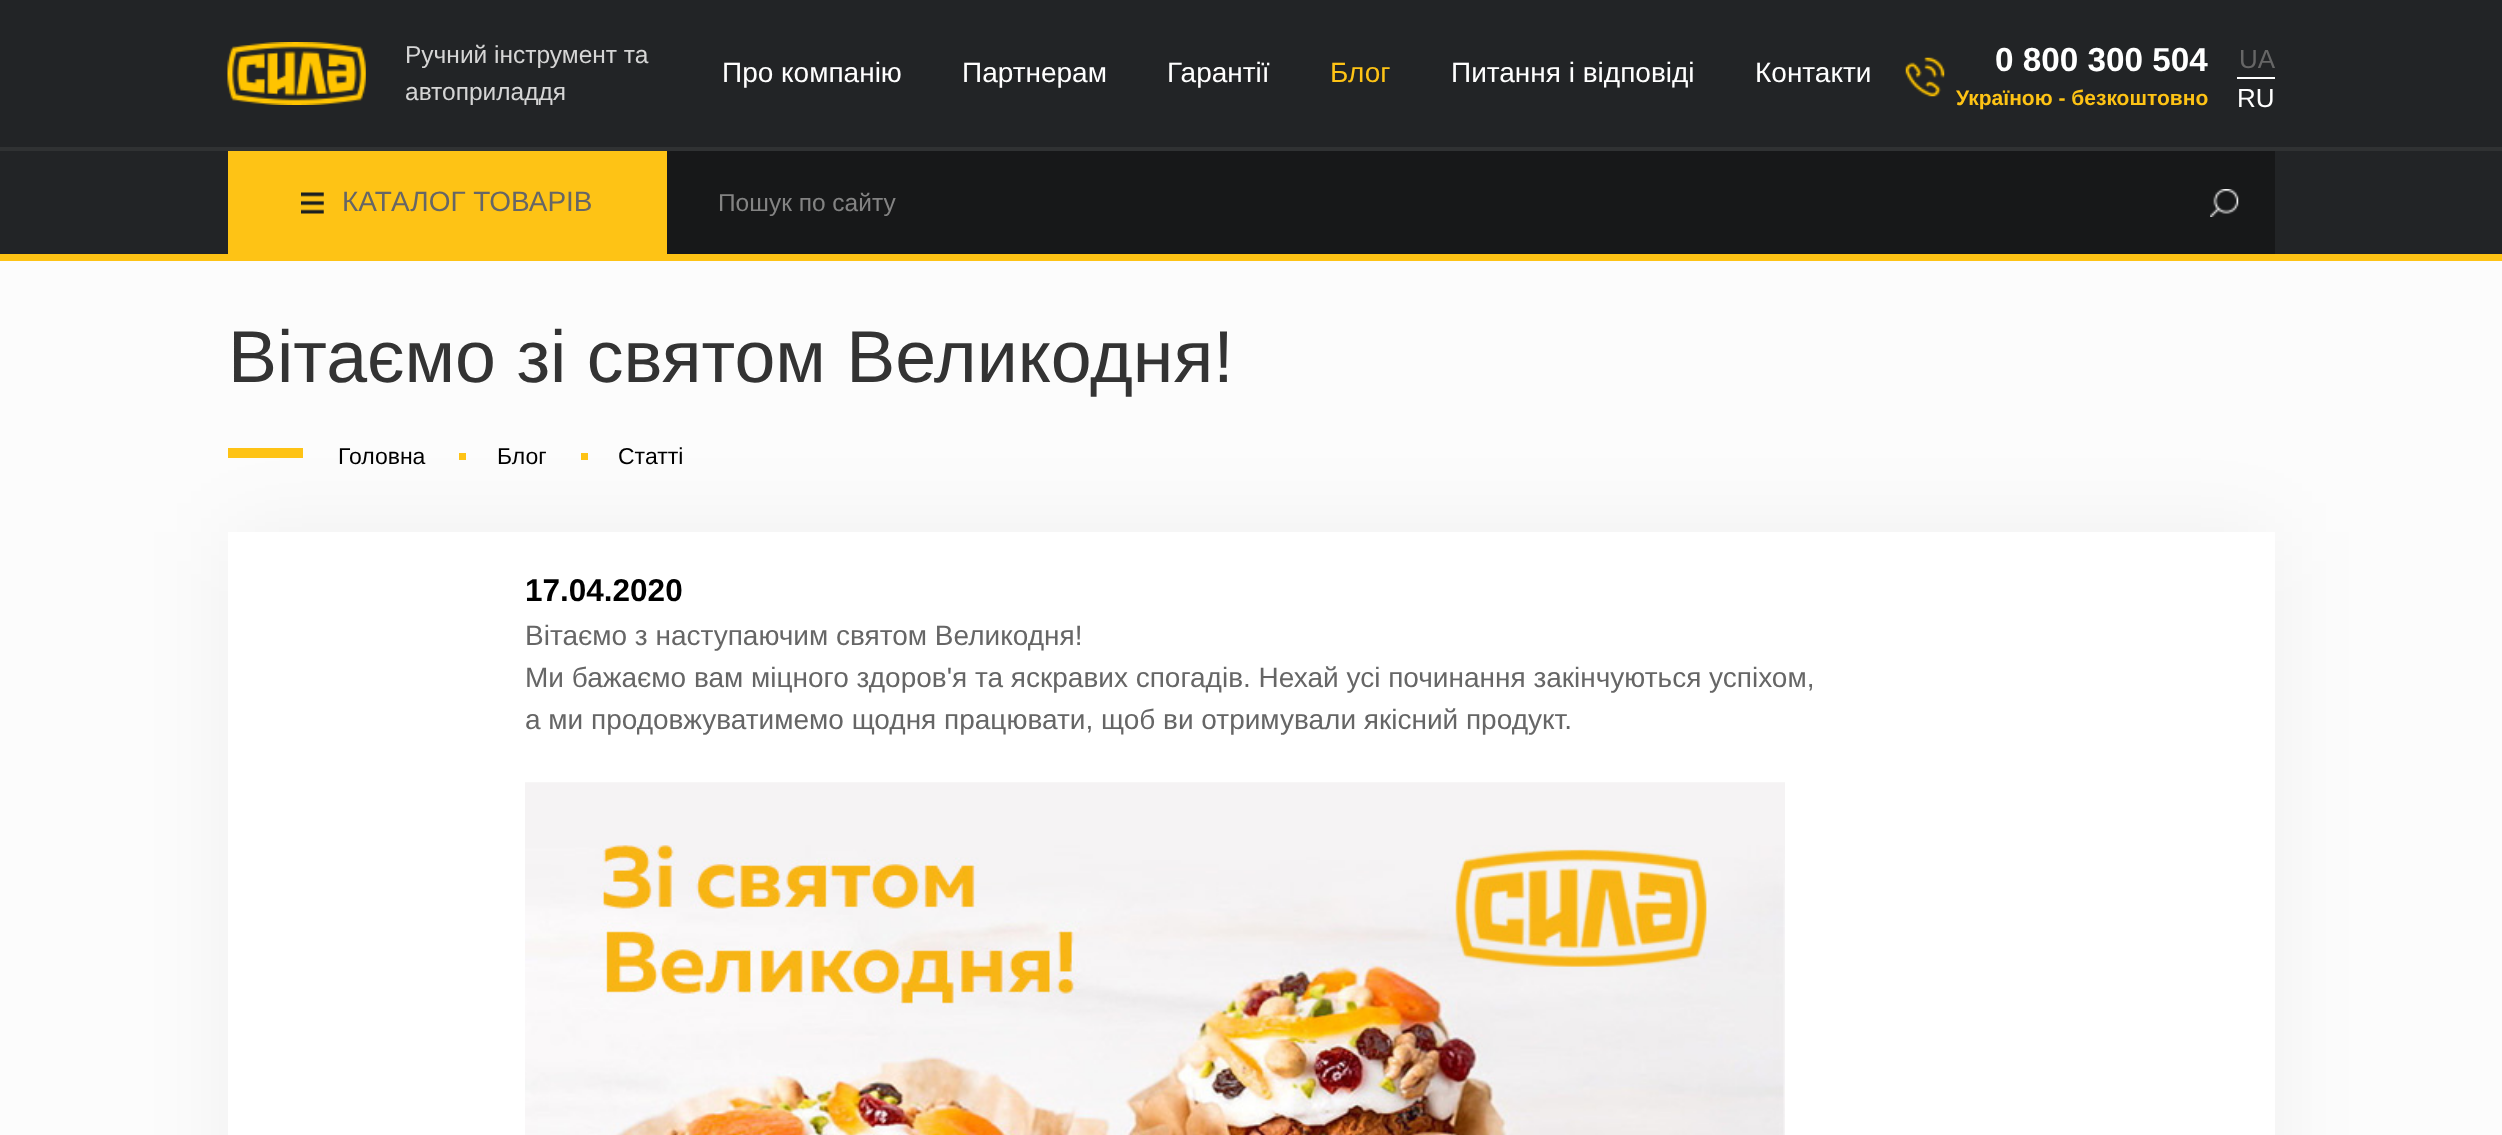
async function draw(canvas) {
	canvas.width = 2502;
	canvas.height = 1135;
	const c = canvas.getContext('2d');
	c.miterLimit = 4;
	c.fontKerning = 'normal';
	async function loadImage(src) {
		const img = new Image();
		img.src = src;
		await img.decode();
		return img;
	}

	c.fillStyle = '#fcfcfc';
	c.fillRect(0, 0, 2502, 1135);
	c.fillStyle = '#222426';
	c.fillRect(0, 0, 2502, 254);
	c.fillStyle = '#fec315';
	c.fillRect(0, 254, 2502, 7);
	c.drawImage(await loadImage('img1.png'), 227, 42, 139, 63);
	c.font = '24.5px Liberation Sans';
	c.fillStyle = '#d5d5d5';
	c.fillText('Ручний інструмент та', 405, 63);
	c.fillText('автоприладдя', 405, 100);
	c.font = '28px Liberation Sans';
	c.fillStyle = '#fff';
	for (const [text, x, y] of [
		['Про компанію', 722, 82],
		['Партнерам', 962, 82],
		['Гарантії', 1167, 82],
	]) {
		c.fillText(text, x, y);
	}
	c.fillStyle = '#fec315';
	c.fillText('Блог', 1330, 82);
	c.fillStyle = '#fff';
	c.fillText('Питання і відповіді', 1451, 82);
	c.fillText('Контакти', 1755, 82);
	c.drawImage(await loadImage('img2.png'), 1905, 57, 40, 40);
	c.font = 'bold 33.25px Liberation Sans';
	c.fillText('0 800 300 504', 1995, 71);
	c.font = 'bold 21px Liberation Sans';
	c.fillStyle = '#fec315';
	c.fillText('Україною - безкоштовно', 1956, 105);
	c.font = '26px Liberation Sans';
	c.fillStyle = '#666';
	c.fillText('UA', 2239, 68);
	c.fillStyle = '#fff';
	c.fillRect(2237, 77, 38, 2);
	c.fillText('RU', 2237, 107);
	c.fillStyle = '#303233';
	c.fillRect(0, 147, 2502, 4);
	c.fillStyle = '#fec315';
	c.fillRect(228, 151, 439, 103);
	c.drawImage(await loadImage('img3.png'), 301, 192, 23, 22);
	c.font = '28px Liberation Sans';
	c.fillStyle = '#666';
	c.fillText('КАТАЛОГ ТОВАРІВ', 342, 211);
	c.fillStyle = '#171819';
	c.fillRect(667, 151, 1608, 103);
	c.font = '24.5px Liberation Sans';
	c.fillStyle = '#838383';
	c.fillText('Пошук по сайту', 718, 211);
	c.drawImage(await loadImage('img4.png'), 2210, 189, 29, 28);
	c.font = '73.5px Liberation Sans';
	c.fillStyle = '#333';
	c.fillText('Вітаємо зі святом Великодня!', 228, 382);
	c.fillStyle = '#0000000d';
	c.filter = 'blur(44px)';
	c.beginPath();
	c.rect(228, 532, 2047, 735);
	c.fill();
	c.filter = 'none';
	c.fillStyle = '#fec315';
	c.fillRect(228, 448, 75, 10);
	c.font = '23px Liberation Sans';
	c.fillStyle = '#000';
	c.fillText('Головна', 338, 464);
	c.fillStyle = '#fec315';
	c.fillRect(459, 453, 7, 7);
	c.fillStyle = '#000';
	c.fillText('Блог', 497, 464);
	c.fillStyle = '#fec315';
	c.fillRect(581, 453, 7, 7);
	c.fillStyle = '#000';
	c.fillText('Статті', 618, 464);
	c.fillStyle = '#fff';
	c.fillRect(228, 532, 2047, 603);
	c.font = 'bold 31.5px Liberation Sans';
	c.fillStyle = '#000';
	c.fillText('17.04.2020', 525, 601);
	c.font = '28px Liberation Sans';
	c.fillStyle = '#666';
	for (const [text, x, y] of [
		['Вітаємо з наступаючим святом Великодня!', 525, 645],
		['Ми бажаємо вам міцного здоров\'я та яскравих спогадів. Нехай усі починання закінчуються успіхом,', 525, 687],
		['а ми продовжуватимемо щодня працювати, щоб ви отримували якісний продукт.', 525, 729],
	]) {
		c.fillText(text, x, y);
	}
	c.drawImage(await loadImage('img5.png'), 525, 782, 1260, 353);
}

draw(document.querySelector('canvas'));
